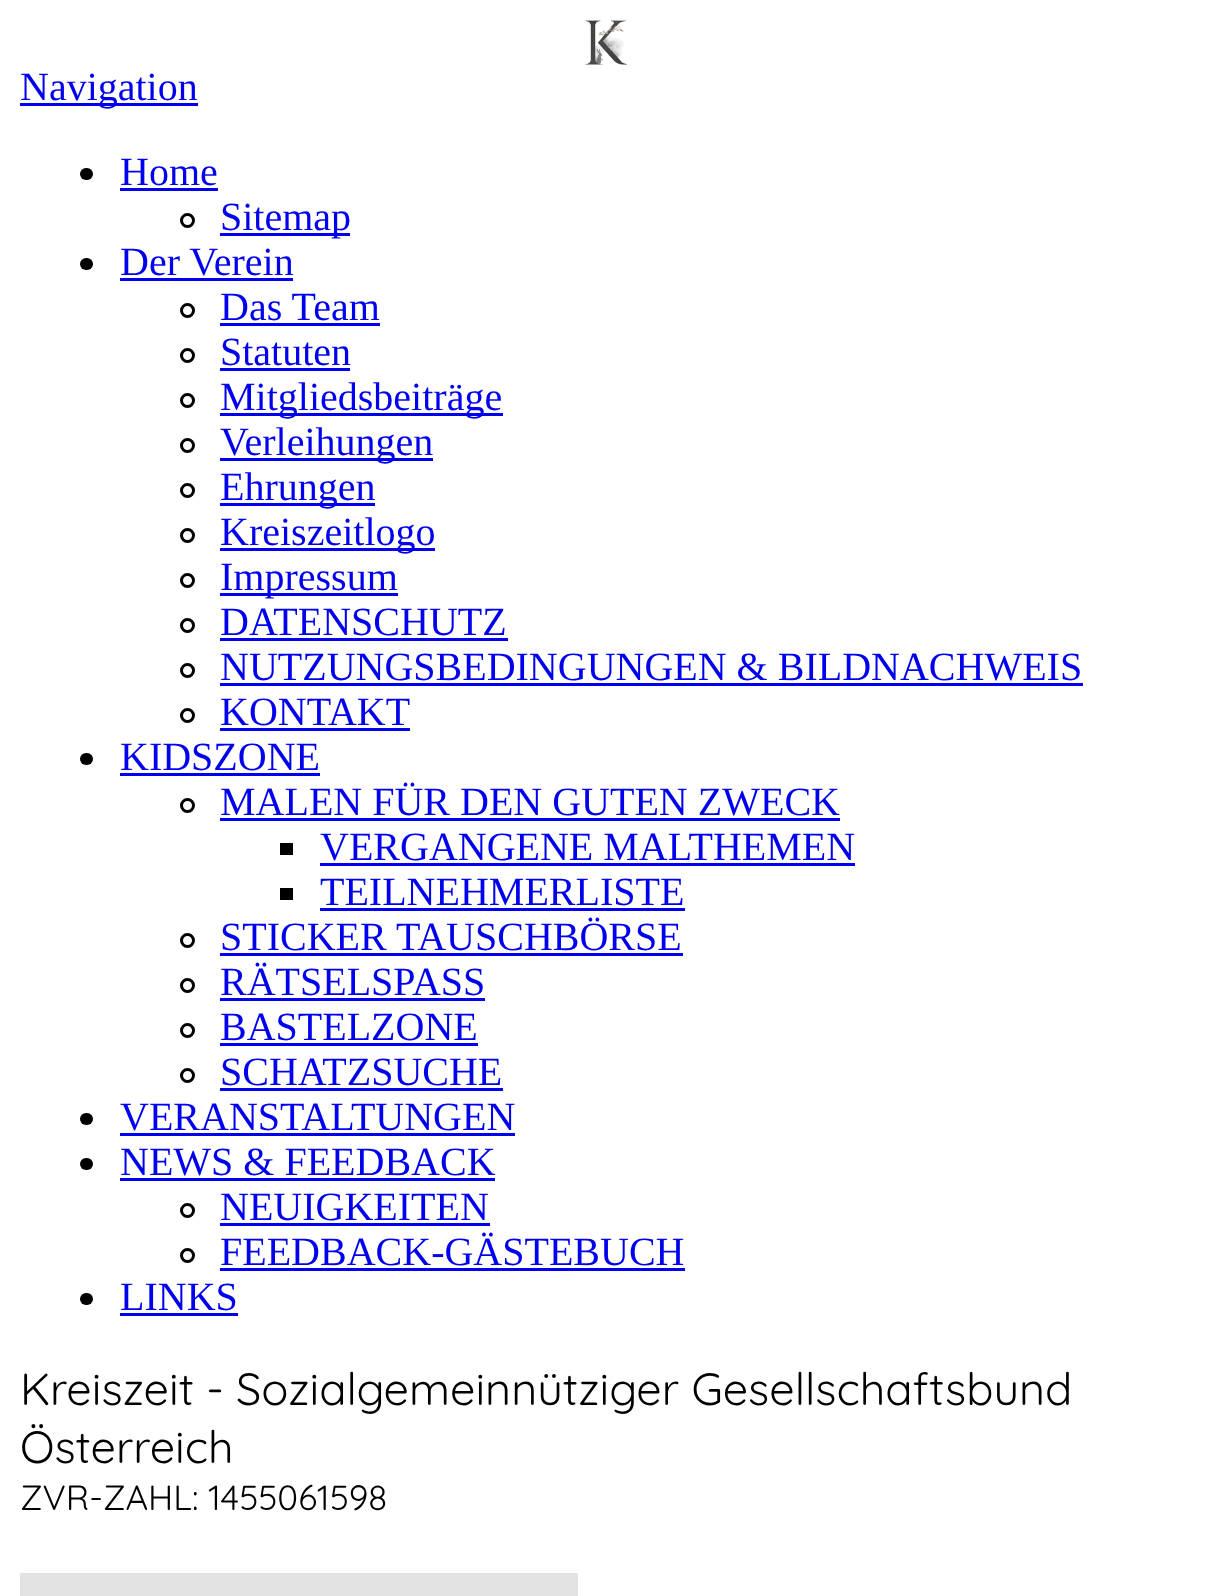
async function draw(canvas) {
	canvas.width = 1214;
	canvas.height = 1596;
	const c = canvas.getContext('2d');
	c.miterLimit = 4;
	c.fontKerning = 'normal';
	async function loadImage(src) {
		const img = new Image();
		img.src = src;
		await img.decode();
		return img;
	}

	c.fillStyle = '#fff';
	c.fillRect(0, 0, 1214, 1596);
	c.drawImage(await loadImage('img1.png'), 585, 20, 42, 45);
	c.fillStyle = '#00e';
	c.fillRect(20, 103, 178, 3);
	c.font = '40px Liberation Serif';
	c.fillText('Navigation', 20, 100);
	c.fillStyle = '#000';
	c.beginPath();
	c.roundRect(80, 168, 13, 12, 6);
	c.fill();
	c.fillStyle = '#00e';
	c.fillText('Home', 120, 185);
	c.fillRect(120, 188, 98, 3);
	c.beginPath();
	c.arc(187.5, 220.5, 6, 0, 2 * Math.PI);
	c.strokeStyle = '#000';
	c.lineWidth = 3;
	c.stroke();
	c.fillRect(220, 233, 130, 3);
	c.fillText('Sitemap', 220, 230);
	c.fillStyle = '#000';
	c.beginPath();
	c.roundRect(80, 258, 13, 12, 6);
	c.fill();
	c.fillStyle = '#00e';
	c.fillText('Der Verein', 120, 275);
	c.fillRect(120, 278, 173, 3);
	c.beginPath();
	c.arc(187.5, 310.5, 6, 0, 2 * Math.PI);
	c.stroke();
	c.fillText('Das Team', 220, 320);
	c.fillRect(220, 323, 160, 3);
	c.beginPath();
	c.arc(187.5, 355.5, 6, 0, 2 * Math.PI);
	c.stroke();
	c.fillText('Statuten', 220, 365);
	c.fillRect(220, 368, 130, 3);
	c.beginPath();
	c.arc(187.5, 400.5, 6, 0, 2 * Math.PI);
	c.stroke();
	c.fillRect(220, 413, 283, 3);
	c.fillText('Mitgliedsbeiträge', 220, 410);
	c.beginPath();
	c.arc(187.5, 445.5, 6, 0, 2 * Math.PI);
	c.stroke();
	c.fillRect(220, 458, 213, 3);
	c.fillText('Verleihungen', 220, 455);
	c.beginPath();
	c.arc(187.5, 490.5, 6, 0, 2 * Math.PI);
	c.stroke();
	c.fillRect(220, 503, 155, 3);
	c.fillText('Ehrungen', 220, 500);
	c.beginPath();
	c.arc(187.5, 535.5, 6, 0, 2 * Math.PI);
	c.stroke();
	c.fillRect(220, 548, 215, 3);
	c.fillText('Kreiszeitlogo', 220, 545);
	c.beginPath();
	c.arc(187.5, 580.5, 6, 0, 2 * Math.PI);
	c.stroke();
	c.fillRect(220, 593, 178, 3);
	c.fillText('Impressum', 220, 590);
	c.beginPath();
	c.arc(187.5, 625.5, 6, 0, 2 * Math.PI);
	c.stroke();
	c.fillText('DATENSCHUTZ', 220, 635);
	c.fillRect(220, 638, 288, 3);
	c.beginPath();
	c.arc(187.5, 670.5, 6, 0, 2 * Math.PI);
	c.stroke();
	c.fillText('NUTZUNGSBEDINGUNGEN & BILDNACHWEIS', 220, 680);
	c.fillRect(220, 683, 863, 3);
	c.beginPath();
	c.arc(187.5, 715.5, 6, 0, 2 * Math.PI);
	c.stroke();
	c.fillText('KONTAKT', 220, 725);
	c.fillRect(220, 728, 190, 3);
	c.fillStyle = '#000';
	c.beginPath();
	c.roundRect(80, 753, 13, 12, 6);
	c.fill();
	c.fillStyle = '#00e';
	c.fillText('KIDSZONE', 120, 770);
	c.fillRect(120, 773, 200, 3);
	c.beginPath();
	c.arc(187.5, 805.5, 6, 0, 2 * Math.PI);
	c.stroke();
	c.fillText('MALEN FÜR DEN GUTEN ZWECK', 220, 815);
	c.fillRect(220, 818, 620, 3);
	c.fillStyle = '#000';
	c.fillRect(280, 843, 13, 12);
	c.fillStyle = '#00e';
	c.fillText('VERGANGENE MALTHEMEN', 320, 860);
	c.fillRect(320, 863, 535, 3);
	c.fillStyle = '#000';
	c.fillRect(280, 888, 13, 12);
	c.fillStyle = '#00e';
	c.fillText('TEILNEHMERLISTE', 320, 905);
	c.fillRect(320, 908, 365, 3);
	c.beginPath();
	c.arc(187.5, 940.5, 6, 0, 2 * Math.PI);
	c.stroke();
	c.fillText('STICKER TAUSCHBÖRSE', 220, 950);
	c.fillRect(220, 953, 463, 3);
	c.beginPath();
	c.arc(187.5, 985.5, 6, 0, 2 * Math.PI);
	c.stroke();
	c.fillText('RÄTSELSPASS', 220, 995);
	c.fillRect(220, 998, 265, 3);
	c.beginPath();
	c.arc(187.5, 1030.5, 6, 0, 2 * Math.PI);
	c.stroke();
	c.fillText('BASTELZONE', 220, 1040);
	c.fillRect(220, 1043, 258, 3);
	c.beginPath();
	c.arc(187.5, 1075.5, 6, 0, 2 * Math.PI);
	c.stroke();
	c.fillText('SCHATZSUCHE', 220, 1085);
	c.fillRect(220, 1088, 283, 3);
	c.fillStyle = '#000';
	c.beginPath();
	c.roundRect(80, 1113, 13, 12, 6);
	c.fill();
	c.fillStyle = '#00e';
	c.fillText('VERANSTALTUNGEN', 120, 1130);
	c.fillRect(120, 1133, 395, 3);
	c.fillStyle = '#000';
	c.beginPath();
	c.roundRect(80, 1158, 13, 12, 6);
	c.fill();
	c.fillStyle = '#00e';
	c.fillText('NEWS & FEEDBACK', 120, 1175);
	c.fillRect(120, 1178, 375, 3);
	c.beginPath();
	c.arc(187.5, 1210.5, 6, 0, 2 * Math.PI);
	c.stroke();
	c.fillText('NEUIGKEITEN', 220, 1220);
	c.fillRect(220, 1223, 270, 3);
	c.beginPath();
	c.arc(187.5, 1255.5, 6, 0, 2 * Math.PI);
	c.stroke();
	c.fillText('FEEDBACK-GÄSTEBUCH', 220, 1265);
	c.fillRect(220, 1268, 465, 3);
	c.fillStyle = '#000';
	c.beginPath();
	c.roundRect(80, 1293, 13, 12, 6);
	c.fill();
	c.fillStyle = '#00e';
	c.fillText('LINKS', 120, 1310);
	c.fillRect(120, 1313, 118, 3);
	c.font = '45px Quicksand';
	c.fillStyle = '#000';
	c.fillText('Kreiszeit - Sozialgemeinnütziger Gesellschaftsbund', 20, 1405);
	c.fillText('Österreich', 20, 1463);
	c.font = '35px Quicksand';
	c.fillText('ZVR-ZAHL: 1455061598', 20, 1510);
	c.fillStyle = '#e3e3e3';
	c.fillRect(20, 1573, 558, 23);
}

draw(document.querySelector('canvas'));
